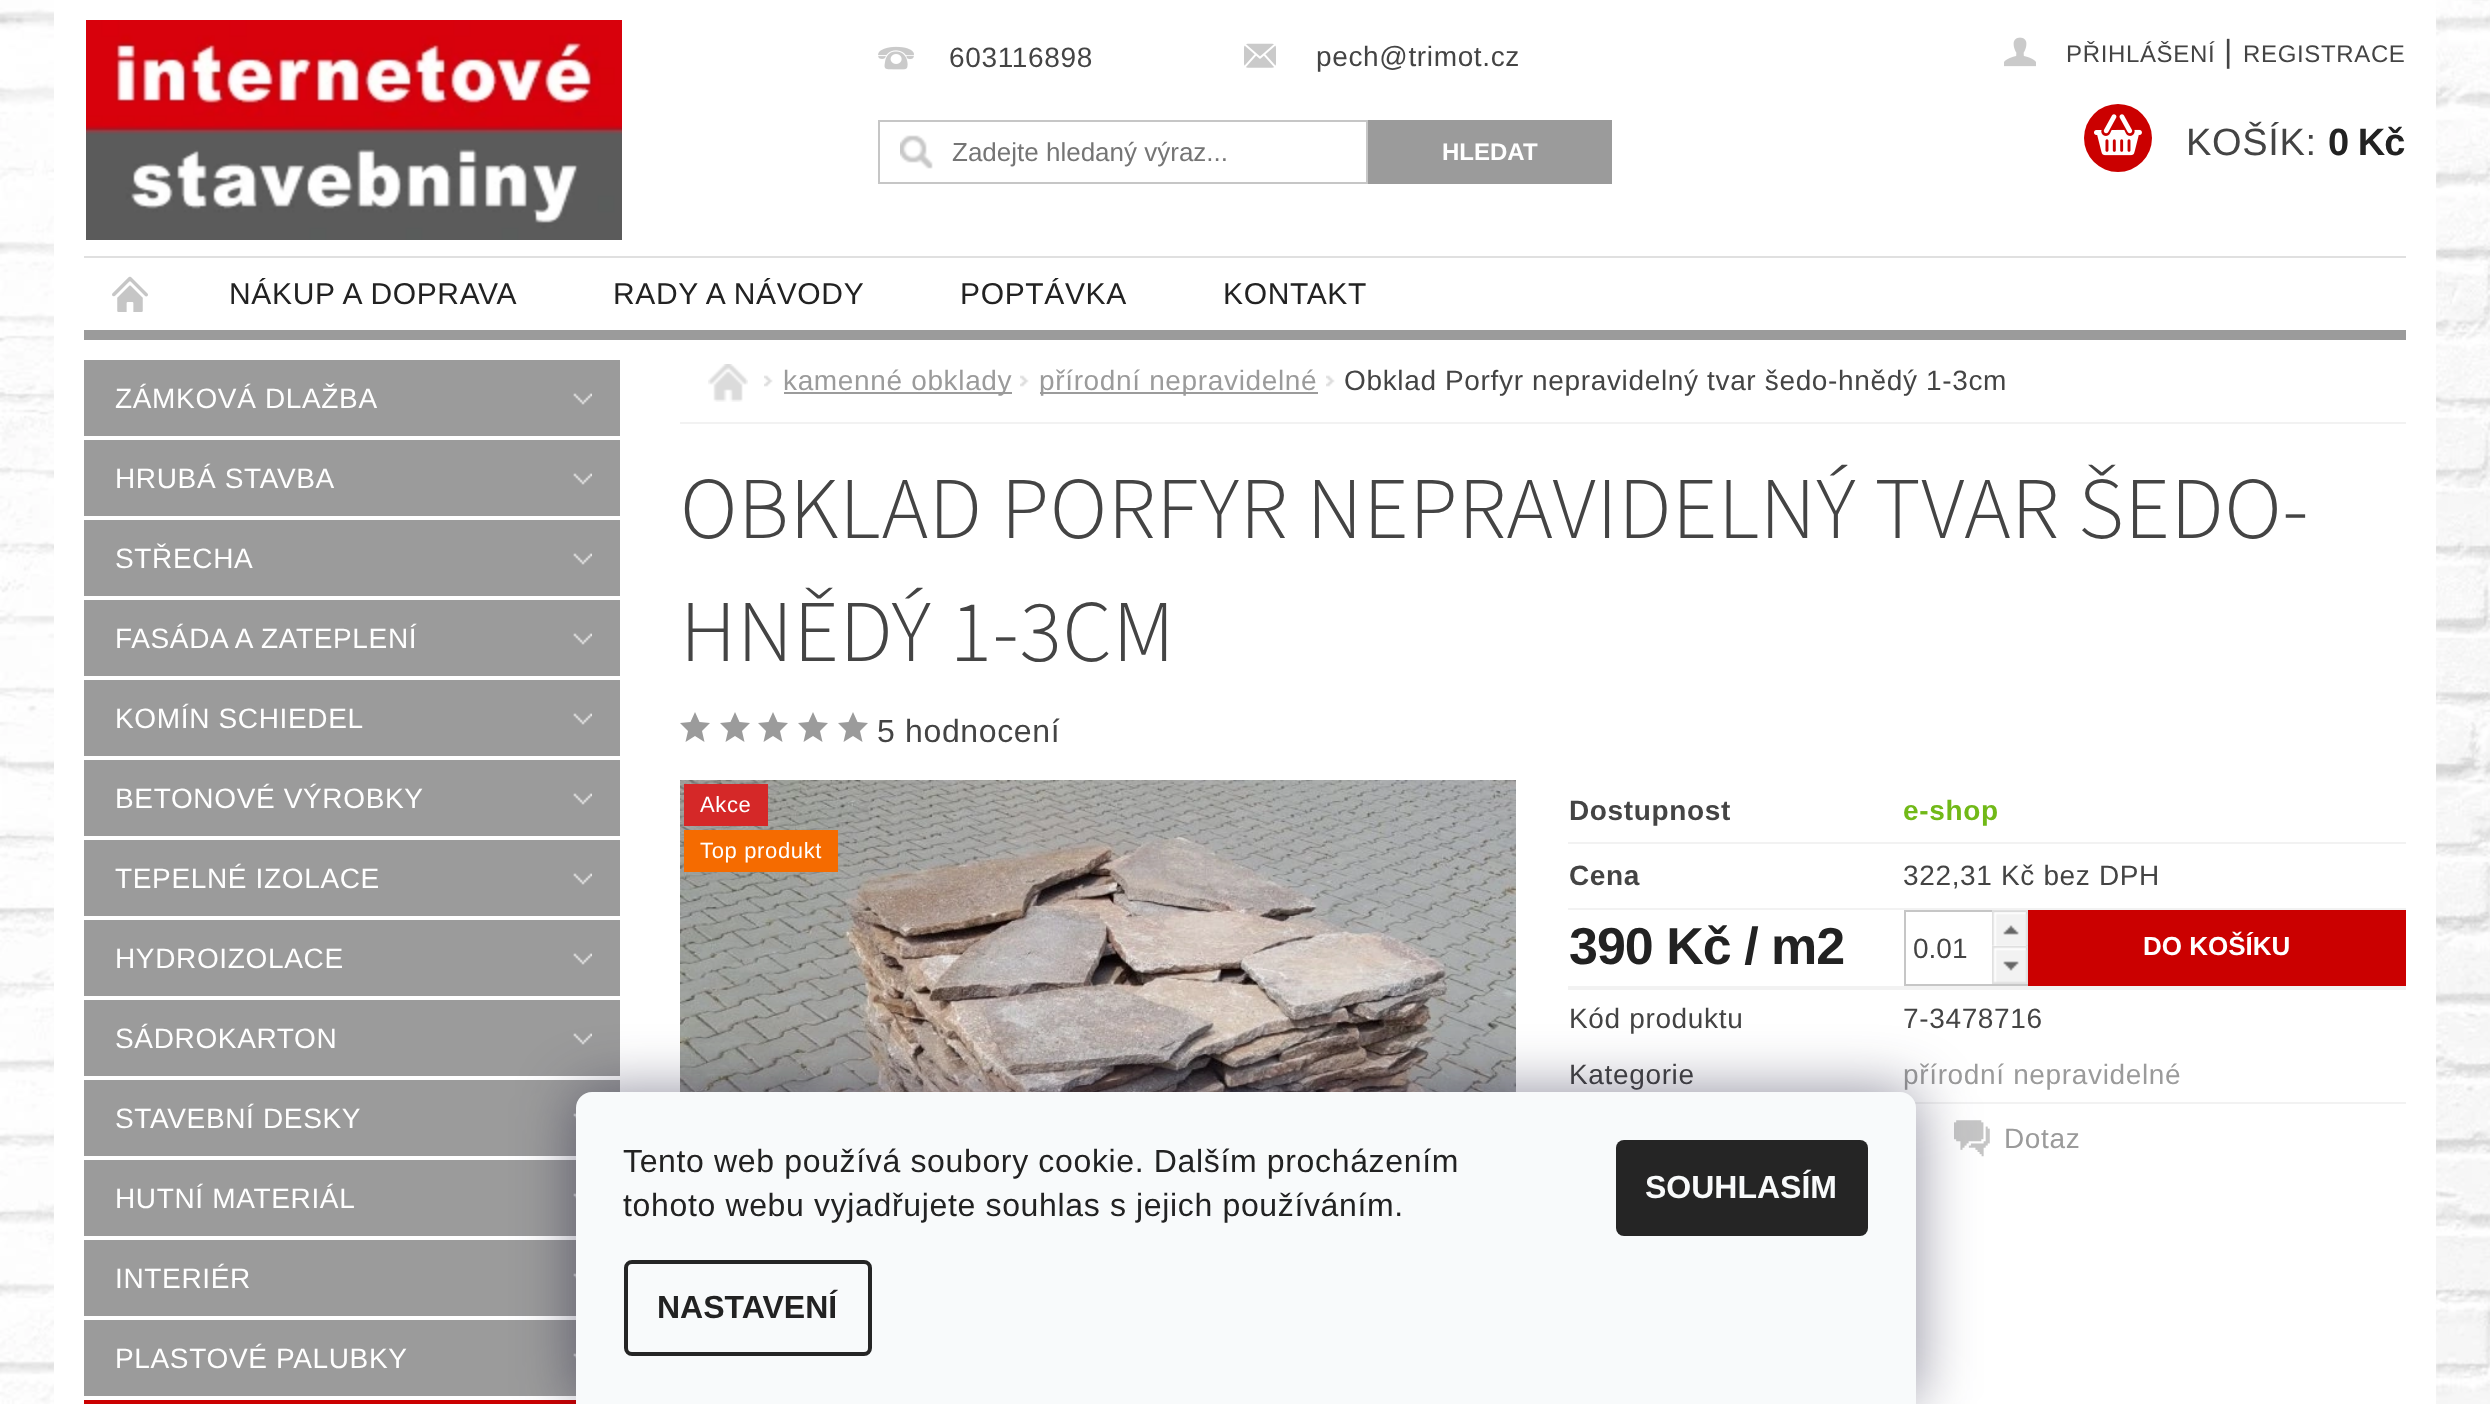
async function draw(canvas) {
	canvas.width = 2490;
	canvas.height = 1404;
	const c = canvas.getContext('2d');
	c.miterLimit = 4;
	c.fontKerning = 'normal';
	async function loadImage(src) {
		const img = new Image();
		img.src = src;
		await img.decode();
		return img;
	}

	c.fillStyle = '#fff';
	c.fillRect(0, 0, 2490, 1404);
	c.drawImage(await loadImage('img1.png'), 0, 0, 2490, 1404);
	c.fillRect(54, 0, 2382, 1404);
	c.fillStyle = '#9b9b9b';
	c.fillRect(84, 330, 2322, 10);
	c.drawImage(await loadImage('img2.png'), 86, 20, 536, 220);
	c.drawImage(await loadImage('img3.png'), 878, 46, 36, 24);
	c.letterSpacing = '0.65px';
	c.font = '28px Liberation Sans';
	c.fillStyle = '#444';
	c.fillText('603116898', 949, 67);
	c.drawImage(await loadImage('img4.png'), 1244, 43, 32, 25);
	c.fillText('pech@trimot.cz', 1316, 66);
	c.drawImage(await loadImage('img5.png'), 900, 135, 33, 34);
	c.strokeStyle = '#c6c6c6';
	c.lineWidth = 2;
	c.strokeRect(879, 121, 488, 62);
	c.letterSpacing = '0px';
	c.font = '26px Liberation Sans';
	c.fillStyle = '#757575';
	c.fillText('Zadejte hledaný výraz...', 952, 161);
	c.fillStyle = '#9b9b9b';
	c.fillRect(1368, 120, 244, 64);
	c.font = 'bold 24px Liberation Sans';
	c.fillStyle = '#fff';
	c.fillText('HLEDAT', 1442, 160);
	c.drawImage(await loadImage('img6.png'), 2004, 37, 32, 30);
	c.letterSpacing = '0.65px';
	c.font = '24px Liberation Sans';
	c.fillStyle = '#444';
	c.fillText('PŘIHLÁŠENÍ', 2066, 62);
	c.font = '32px Liberation Sans';
	c.fillText('|', 2224, 62);
	c.font = '24px Liberation Sans';
	c.fillText('REGISTRACE', 2243, 62);
	c.fillStyle = '#cb0000';
	c.beginPath();
	c.arc(2118, 138, 34, 0, 2 * Math.PI);
	c.fill();
	c.drawImage(await loadImage('img7.png'), 2094, 114, 48, 42);
	c.font = '38px Liberation Sans';
	c.fillStyle = '#444';
	c.fillText('KOŠÍK:', 2186, 155);
	c.letterSpacing = '-1px';
	c.font = 'bold 38px Liberation Sans';
	c.fillStyle = '#222';
	c.fillText('0 Kč', 2328, 155);
	c.fillStyle = '#e0e0e0';
	c.fillRect(84, 256, 2322, 2);
	c.drawImage(await loadImage('img8.png'), 112, 276, 36, 36);
	c.letterSpacing = '0.65px';
	c.font = '30px Liberation Sans';
	c.fillStyle = '#222';
	for (const [text, x, y] of [
		['NÁKUP A DOPRAVA', 229, 304],
		['RADY A NÁVODY', 613, 304],
		['POPTÁVKA', 960, 304],
		['KONTAKT', 1223, 304],
	]) {
		c.fillText(text, x, y);
	}
	c.fillStyle = '#9b9b9b';
	c.fillRect(84, 360, 536, 76);
	c.drawImage(await loadImage('img9.png'), 573, 393, 19, 12);
	c.font = '28px Liberation Sans';
	c.fillStyle = '#fff';
	c.fillText('ZÁMKOVÁ DLAŽBA', 115, 408);
	c.fillStyle = '#9b9b9b';
	c.fillRect(84, 440, 536, 76);
	c.drawImage(await loadImage('img9.png'), 573, 473, 19, 12);
	c.fillStyle = '#fff';
	c.fillText('HRUBÁ STAVBA', 115, 488);
	c.fillStyle = '#9b9b9b';
	c.fillRect(84, 520, 536, 76);
	c.drawImage(await loadImage('img9.png'), 573, 553, 19, 12);
	c.fillStyle = '#fff';
	c.fillText('STŘECHA', 115, 568);
	c.fillStyle = '#9b9b9b';
	c.fillRect(84, 600, 536, 76);
	c.drawImage(await loadImage('img9.png'), 573, 633, 19, 12);
	c.fillStyle = '#fff';
	c.fillText('FASÁDA A ZATEPLENÍ', 115, 648);
	c.fillStyle = '#9b9b9b';
	c.fillRect(84, 680, 536, 76);
	c.drawImage(await loadImage('img9.png'), 573, 713, 19, 12);
	c.fillStyle = '#fff';
	c.fillText('KOMÍN SCHIEDEL', 115, 728);
	c.fillStyle = '#9b9b9b';
	c.fillRect(84, 760, 536, 76);
	c.drawImage(await loadImage('img9.png'), 573, 793, 19, 12);
	c.fillStyle = '#fff';
	c.fillText('BETONOVÉ VÝROBKY', 115, 808);
	c.fillStyle = '#9b9b9b';
	c.fillRect(84, 840, 536, 76);
	c.drawImage(await loadImage('img9.png'), 573, 873, 19, 12);
	c.fillStyle = '#fff';
	c.fillText('TEPELNÉ IZOLACE', 115, 888);
	c.fillStyle = '#9b9b9b';
	c.fillRect(84, 920, 536, 76);
	c.drawImage(await loadImage('img9.png'), 573, 953, 19, 12);
	c.fillStyle = '#fff';
	c.fillText('HYDROIZOLACE', 115, 968);
	c.fillStyle = '#9b9b9b';
	c.fillRect(84, 1000, 536, 76);
	c.drawImage(await loadImage('img9.png'), 573, 1033, 19, 12);
	c.fillStyle = '#fff';
	c.fillText('SÁDROKARTON', 115, 1048);
	c.fillStyle = '#9b9b9b';
	c.fillRect(84, 1080, 536, 76);
	c.drawImage(await loadImage('img10.png'), 573, 1113, 3, 6);
	c.fillStyle = '#fff';
	c.fillText('STAVEBNÍ DESKY', 115, 1128);
	c.fillStyle = '#9b9b9b';
	c.fillRect(84, 1160, 492, 76);
	c.drawImage(await loadImage('img10.png'), 573, 1193, 3, 6);
	c.fillStyle = '#fff';
	c.fillText('HUTNÍ MATERIÁL', 115, 1208);
	c.fillStyle = '#9b9b9b';
	c.fillRect(84, 1240, 492, 76);
	c.drawImage(await loadImage('img10.png'), 573, 1273, 3, 6);
	c.fillStyle = '#fff';
	c.fillText('INTERIÉR', 115, 1288);
	c.fillStyle = '#9b9b9b';
	c.fillRect(84, 1320, 492, 76);
	c.drawImage(await loadImage('img10.png'), 573, 1353, 3, 6);
	c.fillStyle = '#fff';
	c.fillText('PLASTOVÉ PALUBKY', 115, 1368);
	c.fillStyle = '#cb0000';
	c.fillRect(84, 1400, 492, 4);
	c.fillStyle = '#f2f2f2';
	c.fillRect(680, 422, 1726, 2);
	c.drawImage(await loadImage('img11.png'), 708, 364, 40, 38);
	c.drawImage(await loadImage('img12.png'), 764, 375, 9, 12);
	c.fillStyle = '#9b9b9b';
	c.fillRect(784, 392, 228, 2);
	c.fillText('kamenné obklady', 783, 390);
	c.drawImage(await loadImage('img12.png'), 1020, 375, 9, 12);
	c.fillRect(1040, 392, 278, 2);
	c.fillText('přírodní nepravidelné', 1039, 390);
	c.drawImage(await loadImage('img12.png'), 1326, 375, 9, 12);
	c.fillStyle = '#444';
	c.fillText('Obklad Porfyr nepravidelný tvar šedo-hnědý 1-3cm', 1344, 390);
	c.font = '300 88px "Source Sans 3"';
	c.fillText('OBKLAD PORFYR NEPRAVIDELNÝ TVAR ŠEDO-', 680, 538);
	c.fillText('HNĚDÝ 1-3CM', 680, 661);
	c.fillStyle = '#9b9b9b';
	c.beginPath();
	c.moveTo(695, 712);
	c.lineTo(690.5, 722);
	c.lineTo(680, 723);
	c.lineTo(688, 731);
	c.lineTo(685.5, 742);
	c.lineTo(695, 736);
	c.lineTo(704.5, 742);
	c.lineTo(702, 731);
	c.lineTo(710, 723);
	c.lineTo(699.5, 722);
	c.closePath();
	c.fill();
	c.beginPath();
	c.moveTo(735, 712);
	c.lineTo(730.5, 722);
	c.lineTo(720, 723);
	c.lineTo(728, 731);
	c.lineTo(725.5, 742);
	c.lineTo(735, 736);
	c.lineTo(744.5, 742);
	c.lineTo(742, 731);
	c.lineTo(750, 723);
	c.lineTo(739.5, 722);
	c.closePath();
	c.fill();
	c.beginPath();
	c.moveTo(773, 712);
	c.lineTo(768.5, 722);
	c.lineTo(758, 723);
	c.lineTo(766, 731);
	c.lineTo(763.5, 742);
	c.lineTo(773, 736);
	c.lineTo(782.5, 742);
	c.lineTo(780, 731);
	c.lineTo(788, 723);
	c.lineTo(777.5, 722);
	c.closePath();
	c.fill();
	c.beginPath();
	c.moveTo(813, 712);
	c.lineTo(808.5, 722);
	c.lineTo(798, 723);
	c.lineTo(806, 731);
	c.lineTo(803.5, 742);
	c.lineTo(813, 736);
	c.lineTo(822.5, 742);
	c.lineTo(820, 731);
	c.lineTo(828, 723);
	c.lineTo(817.5, 722);
	c.closePath();
	c.fill();
	c.beginPath();
	c.moveTo(853, 712);
	c.lineTo(848.5, 722);
	c.lineTo(838, 723);
	c.lineTo(846, 731);
	c.lineTo(843.5, 742);
	c.lineTo(853, 736);
	c.lineTo(862.5, 742);
	c.lineTo(860, 731);
	c.lineTo(868, 723);
	c.lineTo(857.5, 722);
	c.closePath();
	c.fill();
	c.font = '32px Liberation Sans';
	c.fillStyle = '#444';
	c.fillText('5 hodnocení', 877, 742);
	c.drawImage(await loadImage('img13.png'), 680, 780, 836, 312);
	c.fillStyle = '#d52828';
	c.fillRect(684, 784, 84, 42);
	c.font = '22px Liberation Sans';
	c.fillStyle = '#fff';
	c.fillText('Akce', 700, 812);
	c.fillStyle = '#f56b00';
	c.fillRect(684, 830, 154, 42);
	c.fillStyle = '#fff';
	c.fillText('Top produkt', 700, 858);
	c.fillStyle = '#f2f2f2';
	c.fillRect(1568, 842, 838, 2);
	c.font = 'bold 28px Liberation Sans';
	c.fillStyle = '#444';
	c.fillText('Dostupnost', 1569, 820);
	c.fillStyle = '#71b918';
	c.fillText('e-shop', 1903, 820);
	c.fillStyle = '#f2f2f2';
	c.fillRect(1568, 908, 838, 2);
	c.fillStyle = '#444';
	c.fillText('Cena', 1569, 885);
	c.font = '28px Liberation Sans';
	c.fillText('322,31 Kč bez DPH', 1903, 885);
	c.fillStyle = '#f2f2f2';
	c.fillRect(1568, 986, 838, 4);
	c.letterSpacing = '-1px';
	c.font = 'bold 52px Liberation Sans';
	c.fillStyle = '#222';
	c.fillText('390 Kč / m2', 1569, 964);
	c.strokeRect(1905, 911, 122, 74);
	c.drawImage(await loadImage('img14.png'), 1992, 910, 36, 36);
	c.letterSpacing = '0px';
	c.font = '28px Liberation Sans';
	c.fillStyle = '#444';
	c.fillText('0.01', 1913, 958);
	c.drawImage(await loadImage('img15.png'), 1992, 946, 36, 38);
	c.fillStyle = '#cb0000';
	c.fillRect(2028, 910, 378, 76);
	c.font = 'bold 26px Liberation Sans';
	c.fillStyle = '#fff';
	c.fillText('DO KOŠÍKU', 2143, 955);
	c.letterSpacing = '0.65px';
	c.font = '28px Liberation Sans';
	c.fillStyle = '#444';
	c.fillText('Kód produktu', 1569, 1028);
	c.fillText('7-3478716', 1903, 1028);
	c.fillStyle = '#f2f2f2';
	c.fillRect(1914, 1102, 492, 2);
	c.fillStyle = '#444';
	c.fillText('Kategorie', 1569, 1084);
	c.fillStyle = '#9b9b9b';
	c.fillText('přírodní nepravidelné', 1903, 1084);
	c.drawImage(await loadImage('img16.png'), 1954, 1120, 36, 37);
	c.fillText('Dotaz', 2004, 1148);
	c.fillStyle = '#1b193980';
	c.filter = 'blur(30px)';
	c.beginPath();
	c.roundRect(576, 1092, 1340, 312, 16);
	c.fill();
	c.filter = 'none';
	c.fillStyle = '#f8fafb';
	c.beginPath();
	c.roundRect(576, 1092, 1340, 312, [16, 16, 0, 0]);
	c.fill();
	c.font = '32px Liberation Sans';
	c.fillStyle = '#222';
	c.fillText('Tento web používá soubory cookie. Dalším procházením', 623, 1172);
	c.fillText('tohoto webu vyjadřujete souhlas s jejich používáním.', 623, 1216);
	c.beginPath();
	c.roundRect(626, 1262, 244, 92, 6);
	c.strokeStyle = '#252525';
	c.lineWidth = 4;
	c.stroke();
	c.letterSpacing = '0px';
	c.font = 'bold 32px Liberation Sans';
	c.fillText('NASTAVENÍ', 657, 1318);
	c.fillStyle = '#252525';
	c.beginPath();
	c.roundRect(1616, 1140, 252, 96, 8);
	c.fill();
	c.fillStyle = '#f8fafb';
	c.fillText('SOUHLASÍM', 1645, 1198);
}

draw(document.querySelector('canvas'));
